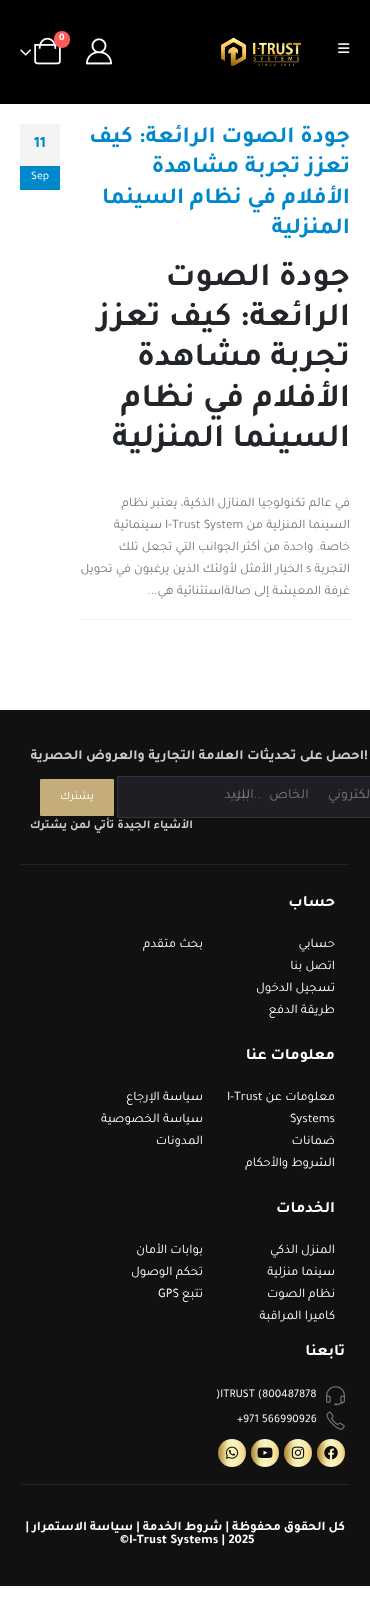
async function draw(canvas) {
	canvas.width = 370;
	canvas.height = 1619;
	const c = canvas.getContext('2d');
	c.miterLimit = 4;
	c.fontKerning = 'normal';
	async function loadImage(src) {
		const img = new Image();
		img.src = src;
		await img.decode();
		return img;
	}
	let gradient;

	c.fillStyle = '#fff';
	c.fillRect(0, 0, 370, 1619);
	c.fillStyle = '#000';
	c.fillRect(0, 0, 370, 104);
	c.drawImage(await loadImage('img1.png'), 338, 43, 12, 10);
	c.drawImage(await loadImage('img2.png'), 221, 37, 80, 29);
	c.drawImage(await loadImage('img3.png'), 34, 37, 27, 28);
	c.fillStyle = '#ff5b5b';
	c.beginPath();
	c.roundRect(54, 31, 16, 17, 8);
	c.fill();
	c.font = 'bold 10px Tajawal';
	c.fillStyle = '#fff';
	c.fillText('0', 59, 40);
	c.drawImage(await loadImage('img4.png'), 20, 49, 11, 7);
	c.drawImage(await loadImage('img5.png'), 86, 38, 26, 27);
	c.fillStyle = '#f0f0f0';
	c.fillRect(80, 619, 270, 1);
	c.direction = 'rtl';
	c.font = 'bold 23.4px Tajawal';
	c.fillStyle = '#08c';
	for (const [text, x, y] of [
		['جودة الصوت الرائعة: كيف', 350, 142],
		['تعزز تجربة مشاهدة', 350, 172],
		['الأفلام في نظام السينما', 350, 203],
		['المنزلية', 350, 233],
	]) {
		c.fillText(text, x, y);
	}
	c.font = 'bold 33.5px Tajawal';
	c.fillStyle = '#222529';
	for (const [text, x, y] of [
		['جودة الصوت', 350, 285],
		['الرائعة: كيف تعزز', 350, 325],
		['تجربة مشاهدة', 350, 365],
		['الأفلام في نظام', 350, 406],
		['السينما المنزلية', 350, 446],
	]) {
		c.fillText(text, x, y);
	}
	c.font = '13px Tajawal';
	c.fillStyle = '#777';
	c.fillText('في عالم تكنولوجيا المنازل الذكية، يعتبر نظام', 350, 506);
	c.fillText('السينما المنزلية من', 350, 528);
	c.direction = 'ltr';
	c.fillText('I-Trust System', 165, 528);
	c.direction = 'rtl';
	for (const [text, x, y] of [
		['سينمائية', 162, 528],
		['خاصة. واحدة من أكثر الجوانب التي تجعل تلك', 350, 550],
		['التجربة', 350, 572],
	]) {
		c.fillText(text, x, y);
	}
	c.direction = 'ltr';
	c.fillText('s', 306, 572);
	c.direction = 'rtl';
	c.fillText('الخيار الأمثل لأولئك الذين يرغبون في تحويل', 303, 572);
	c.fillText('غرفة المعيشة إلى صالةاستثنائية هي...', 350, 594);
	c.fillStyle = '#08c';
	c.fillRect(20, 166, 40, 23);
	c.fillStyle = '#f4f4f4';
	c.fillRect(20, 124, 40, 42);
	c.direction = 'ltr';
	c.font = 'bold 16px Tajawal';
	c.fillStyle = '#08c';
	c.fillText('11', 34, 147);
	c.fillStyle = '#007ebe';
	c.fillRect(20, 189, 40, 1);
	c.font = '11.75px Tajawal';
	c.fillStyle = '#fff';
	c.fillText('Sep', 31, 179);
	c.fillStyle = '#111';
	c.fillRect(0, 710, 370, 876);
	c.fillStyle = '#222';
	c.fillRect(20, 864, 330, 1);
	c.font = 'bold 14px Tajawal';
	c.fillStyle = '#ccc';
	c.fillText('!', 364, 759);
	c.direction = 'rtl';
	c.fillText('احصل على تحديثات العلامة التجارية والعروض الحصرية', 364, 759);
	c.font = 'bold 12px Tajawal';
	c.fillText('الأشياء الجيدة تأتي لمن يشترك', 193, 828);
	c.fillStyle = '#1e1e24';
	c.beginPath();
	c.roundRect(117, 776, 253, 42, [1, 0, 0, 1]);
	c.fill();
	c.beginPath();
	c.roundRect(117.5, 776.5, 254, 41, 0.5);
	c.strokeStyle = '#333';
	c.stroke();
	c.font = '14px Tajawal';
	c.fillStyle = '#777';
	c.fillText('..البريد', 261, 798);
	c.wordSpacing = '16px';
	c.fillText('الإلكتروني الخاص بك', 382, 798);
	c.fillStyle = '#c4ad7a';
	c.beginPath();
	c.roundRect(40, 779, 74, 37, 1);
	c.fill();
	c.wordSpacing = '0px';
	c.font = '11.75px Tajawal';
	c.fillStyle = '#fff';
	c.fillText('يشترك', 94, 799);
	c.font = 'bold 16px Tajawal';
	c.fillText('حساب', 335, 906);
	c.font = '13px Tajawal';
	for (const [text, x, y] of [
		['حسابي', 335, 947],
		['اتصل بنا', 335, 969],
		['تسجيل الدخول', 335, 991],
		['طريقة الدفع', 335, 1013],
		['بحث متقدم', 203, 947],
	]) {
		c.fillText(text, x, y);
	}
	c.font = 'bold 16px Tajawal';
	c.fillText('معلومات عنا', 335, 1059);
	c.font = '13px Tajawal';
	c.fillText('معلومات عن', 335, 1100);
	c.direction = 'ltr';
	c.fillText('I-Trust', 227, 1100);
	c.fillText('Systems', 290, 1122);
	c.direction = 'rtl';
	for (const [text, x, y] of [
		['ضمانات', 335, 1144],
		['الشروط والأحكام', 335, 1166],
		['سياسة الإرجاع', 203, 1100],
		['سياسة الخصوصية', 203, 1122],
		['المدونات', 203, 1144],
	]) {
		c.fillText(text, x, y);
	}
	c.font = 'bold 16px Tajawal';
	c.fillText('الخدمات', 335, 1212);
	c.font = '13px Tajawal';
	for (const [text, x, y] of [
		['المنزل الذكي', 335, 1253],
		['سينما منزلية', 335, 1275],
		['نظام الصوت', 335, 1297],
		['كاميرا المراقبة', 335, 1319],
		['بوابات الأمان', 203, 1253],
		['تحكم الوصول', 203, 1275],
		['تتبع', 203, 1297],
	]) {
		c.fillText(text, x, y);
	}
	c.direction = 'ltr';
	c.fillText('GPS', 158, 1297);
	c.direction = 'rtl';
	c.font = 'bold 16px Tajawal';
	c.fillText('تابعنا', 345, 1355);
	c.drawImage(await loadImage('img6.png'), 326, 1386, 19, 20);
	c.direction = 'ltr';
	c.font = '11.75px Tajawal';
	c.fillText(')ITRUST (800487878', 216, 1397);
	c.drawImage(await loadImage('img7.png'), 326, 1411, 19, 19);
	c.fillText('+971 566990926', 237, 1422);
	gradient = c.createLinearGradient(317, 1453, 345, 1453);
	gradient.addColorStop(0, '#ac8635');
	gradient.addColorStop(0.11, '#c2a052');
	gradient.addColorStop(0.33, '#f0eaa8');
	gradient.addColorStop(0.5, '#faf5c0');
	gradient.addColorStop(0.67, '#f6edb7');
	gradient.addColorStop(0.83, '#f8e49d');
	gradient.addColorStop(1, '#e5c883');
	c.fillStyle = gradient;
	c.beginPath();
	c.arc(331, 1453, 14, 0, 2 * Math.PI);
	c.fill();
	c.drawImage(await loadImage('img8.png'), 324, 1446, 14, 14);
	gradient = c.createLinearGradient(284, 1453, 312, 1453);
	gradient.addColorStop(0, '#ac8635');
	gradient.addColorStop(0.11, '#c2a052');
	gradient.addColorStop(0.33, '#f0eaa8');
	gradient.addColorStop(0.5, '#faf5c0');
	gradient.addColorStop(0.67, '#f6edb7');
	gradient.addColorStop(0.83, '#f8e49d');
	gradient.addColorStop(1, '#e5c883');
	c.fillStyle = gradient;
	c.beginPath();
	c.arc(298, 1453, 14, 0, 2 * Math.PI);
	c.fill();
	c.drawImage(await loadImage('img9.png'), 291, 1446, 14, 13);
	gradient = c.createLinearGradient(251, 1453, 279, 1453);
	gradient.addColorStop(0, '#ac8635');
	gradient.addColorStop(0.11, '#c2a052');
	gradient.addColorStop(0.33, '#f0eaa8');
	gradient.addColorStop(0.5, '#faf5c0');
	gradient.addColorStop(0.67, '#f6edb7');
	gradient.addColorStop(0.83, '#f8e49d');
	gradient.addColorStop(1, '#e5c883');
	c.fillStyle = gradient;
	c.beginPath();
	c.arc(265, 1453, 14, 0, 2 * Math.PI);
	c.fill();
	c.drawImage(await loadImage('img10.png'), 257, 1447, 16, 11);
	gradient = c.createLinearGradient(218, 1453, 246, 1453);
	gradient.addColorStop(0, '#ac8635');
	gradient.addColorStop(0.11, '#c2a052');
	gradient.addColorStop(0.33, '#f0eaa8');
	gradient.addColorStop(0.5, '#faf5c0');
	gradient.addColorStop(0.67, '#f6edb7');
	gradient.addColorStop(0.83, '#f8e49d');
	gradient.addColorStop(1, '#e5c883');
	c.fillStyle = gradient;
	c.beginPath();
	c.arc(232, 1453, 14, 0, 2 * Math.PI);
	c.fill();
	c.drawImage(await loadImage('img11.png'), 225, 1446, 14, 13);
	c.fillStyle = '#222';
	c.fillRect(20, 1484, 330, 1);
	c.letterSpacing = '0.07px';
	c.wordSpacing = '-0.25px';
	c.direction = 'rtl';
	c.font = 'bold 13px Tajawal';
	c.fillStyle = '#fff';
	c.fillText('كل الحقوق محفوظة | شروط الخدمة | سياسة الاستمرار |', 345, 1530);
	c.wordSpacing = '0px';
	c.direction = 'ltr';
	c.fillText('©I-Trust Systems | 2025', 120, 1543);
}

draw(document.querySelector('canvas'));
